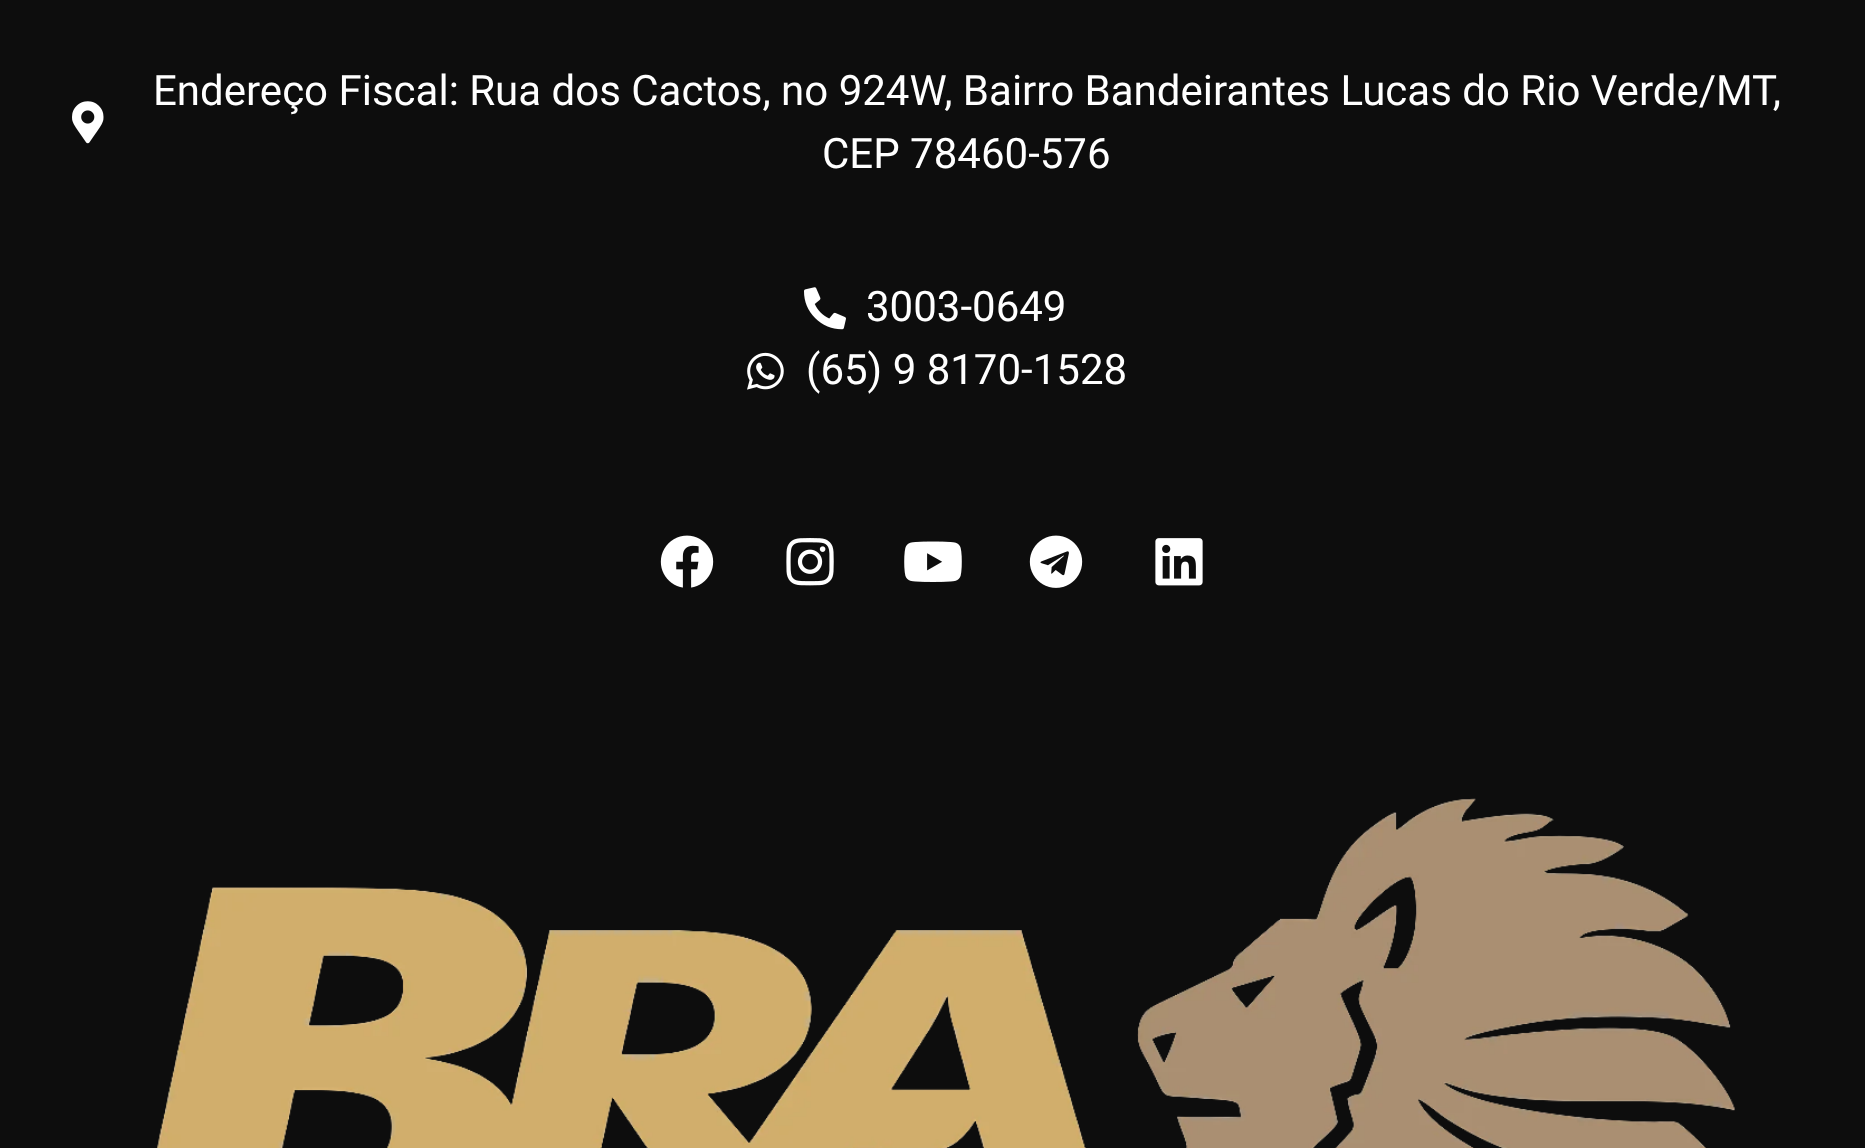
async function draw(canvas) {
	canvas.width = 1865;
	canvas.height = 1148;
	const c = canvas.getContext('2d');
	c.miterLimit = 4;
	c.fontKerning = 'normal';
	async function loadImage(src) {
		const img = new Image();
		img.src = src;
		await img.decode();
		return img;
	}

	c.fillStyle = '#0d0d0d';
	c.fillRect(0, 0, 1865, 1148);
	c.drawImage(await loadImage('img1.png'), 72, 101, 32, 43);
	c.font = '42px Roboto';
	c.fillStyle = '#fff';
	c.fillText('Endereço Fiscal: Rua dos Cactos, no 924W, Bairro Bandeirantes Lucas do Rio Verde/MT,', 153, 105);
	c.fillText('CEP 78460-576', 822, 168);
	c.drawImage(await loadImage('img2.png'), 804, 287, 42, 43);
	c.fillText('3003-0649', 866, 321);
	c.drawImage(await loadImage('img3.png'), 747, 352, 37, 38);
	c.fillText('(65) 9 8170-1528', 806, 384);
	c.drawImage(await loadImage('img4.png'), 660, 535, 54, 53);
	c.drawImage(await loadImage('img5.png'), 786, 538, 48, 48);
	c.drawImage(await loadImage('img6.png'), 904, 541, 58, 41);
	c.drawImage(await loadImage('img7.png'), 1029, 535, 54, 53);
	c.drawImage(await loadImage('img8.png'), 1155, 538, 48, 48);
	c.drawImage(await loadImage('img9.png'), 157, 798, 1578, 350);
}

draw(document.querySelector('canvas'));
